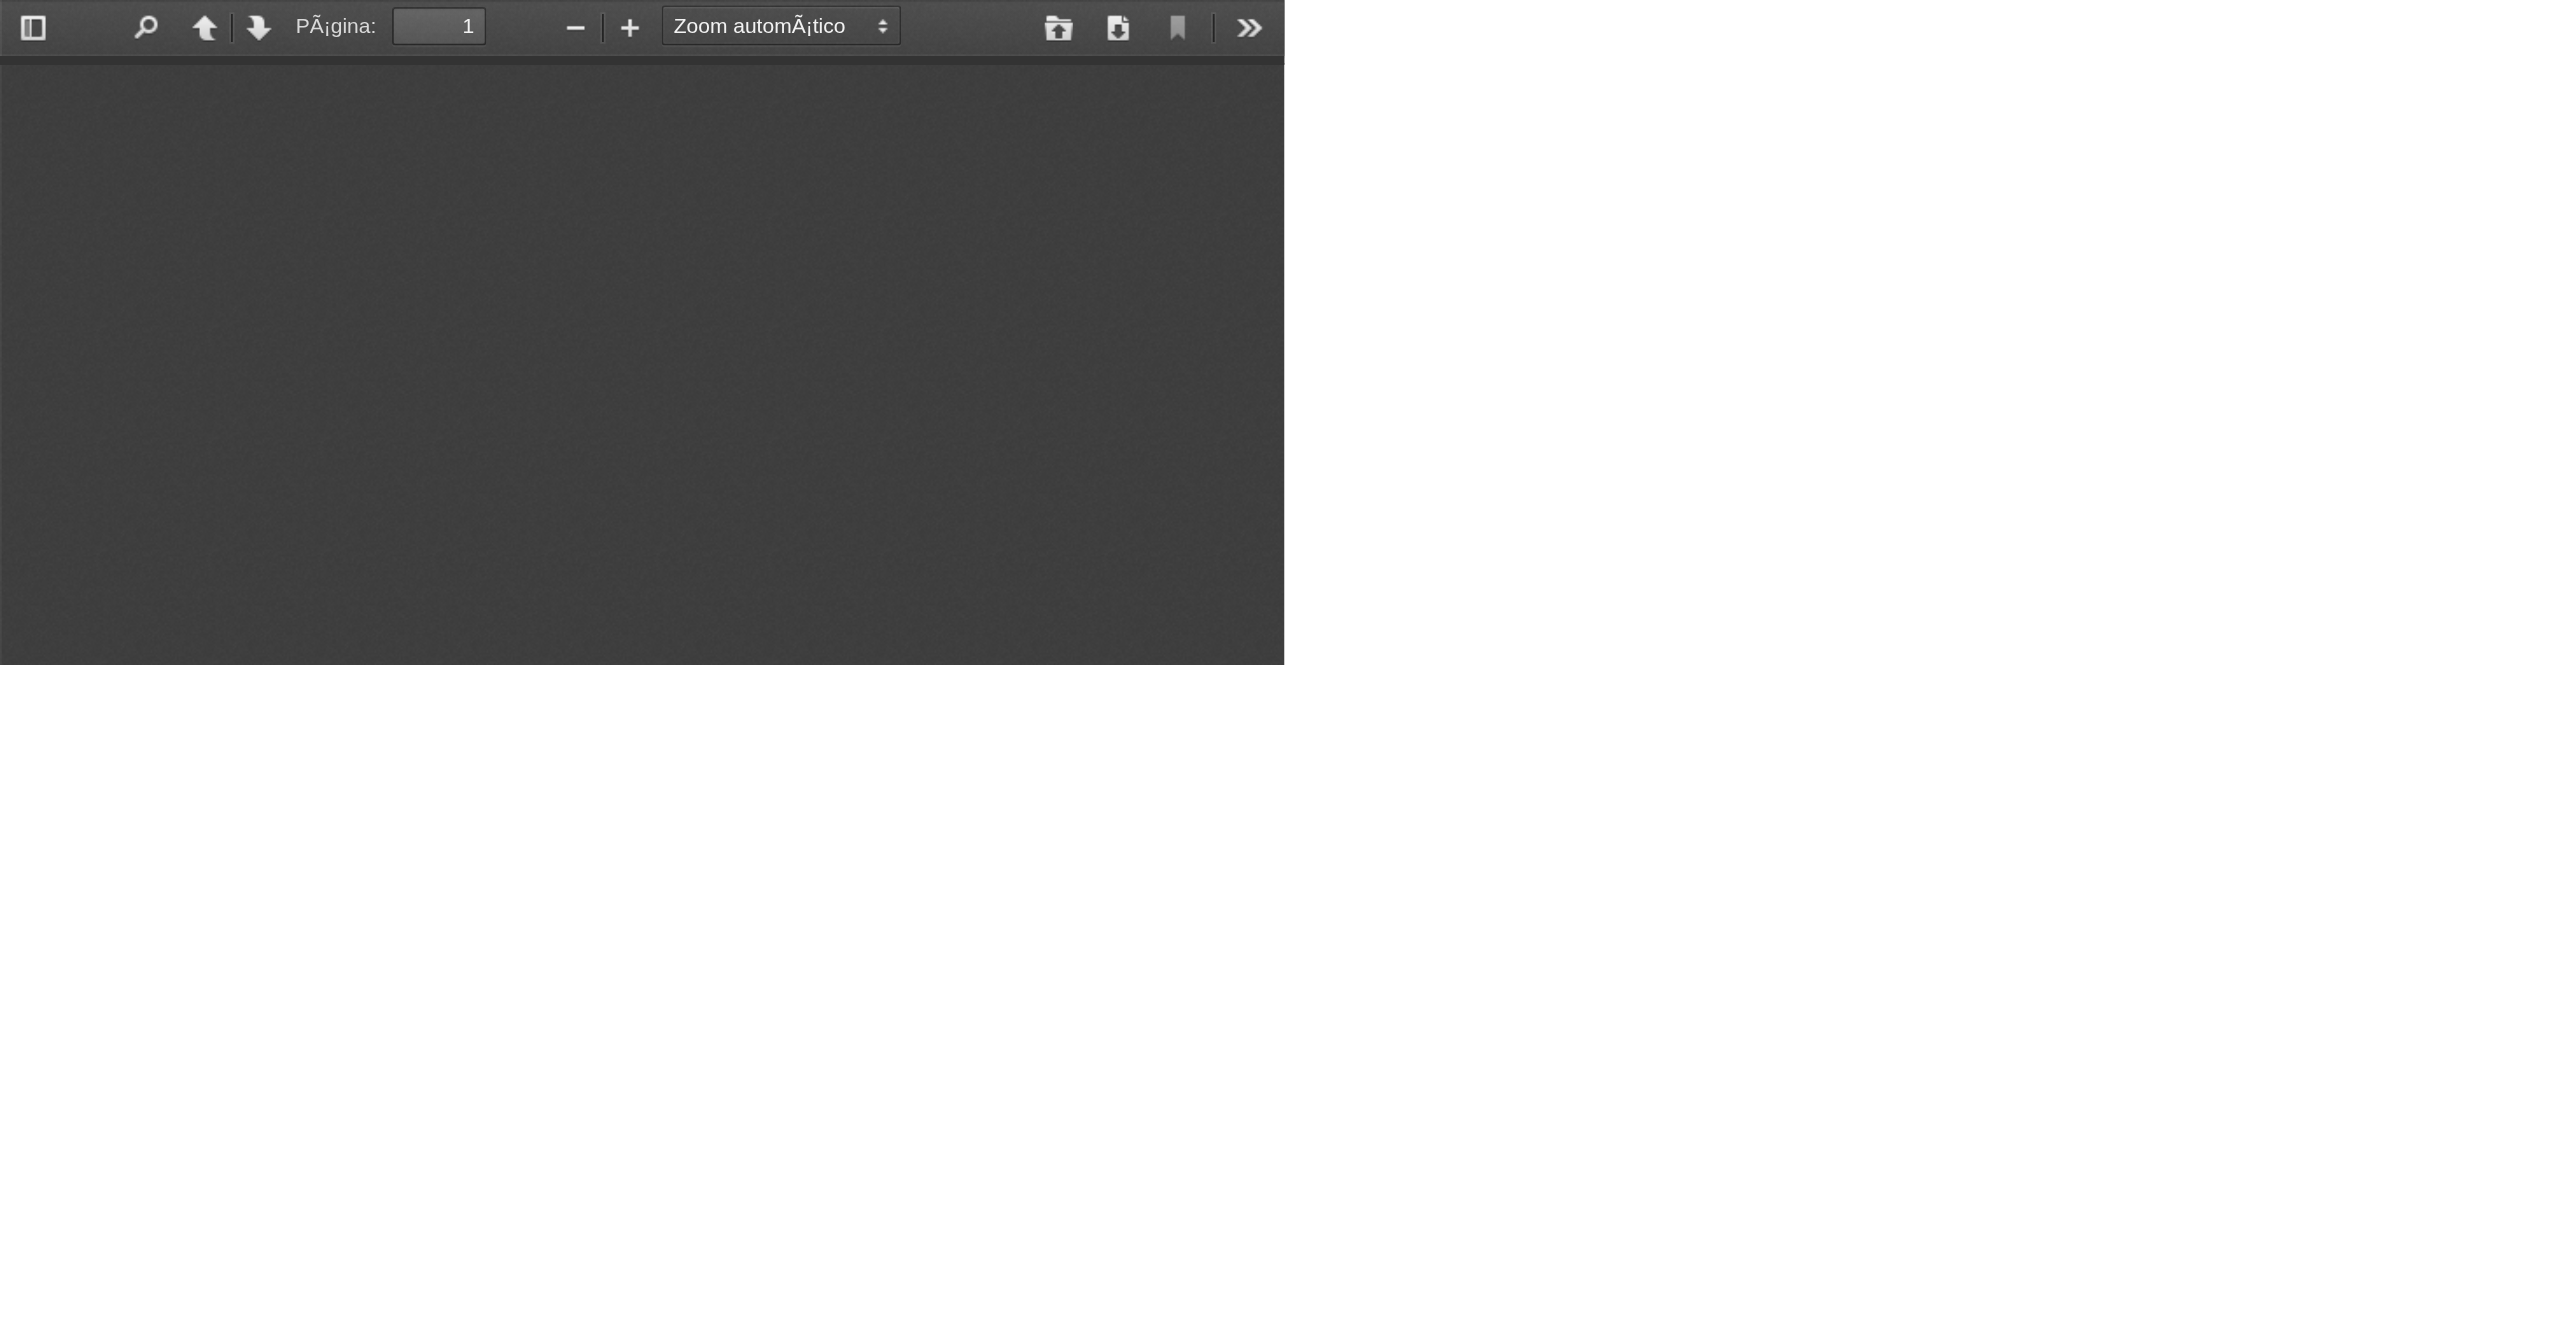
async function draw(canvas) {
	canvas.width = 2567;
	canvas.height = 1329;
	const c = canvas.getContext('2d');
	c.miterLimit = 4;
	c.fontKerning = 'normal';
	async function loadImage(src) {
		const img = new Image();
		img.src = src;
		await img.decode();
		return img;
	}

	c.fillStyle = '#fff';
	c.fillRect(0, 0, 2567, 1329);
	c.drawImage(await loadImage('img1.png'), 0, 0, 1285, 665);
}

draw(document.querySelector('canvas'));
